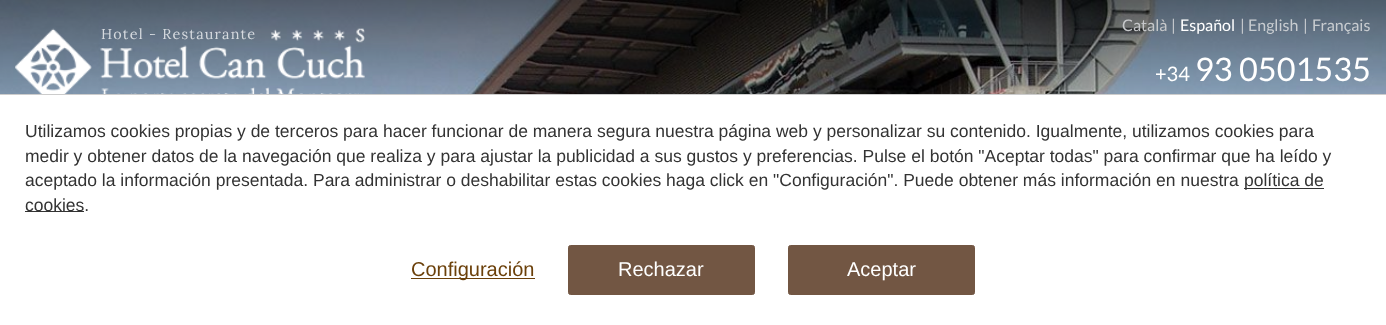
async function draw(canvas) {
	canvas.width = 1386;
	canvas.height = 325;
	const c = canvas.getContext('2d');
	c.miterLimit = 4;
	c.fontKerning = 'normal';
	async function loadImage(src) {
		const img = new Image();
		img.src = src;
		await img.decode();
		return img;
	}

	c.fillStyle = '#fff';
	c.fillRect(0, 0, 1386, 325);
	c.drawImage(await loadImage('img1.png'), 0, 0, 1386, 94);
	c.drawImage(await loadImage('img2.png'), 15, 28, 350, 66);
	c.letterSpacing = '1.25px';
	c.font = '14.4px Lora';
	c.fillStyle = '#d6dadf';
	c.fillText('Hotel - Restaurante', 101, 39);
	c.letterSpacing = '0px';
	c.font = '16px Lato';
	c.fillStyle = '#c6c8ca';
	c.fillText('Català', 1122, 31);
	c.fillStyle = '#c8ccd0';
	c.fillText('|', 1171, 31);
	c.fillStyle = '#fff';
	c.fillText('Español', 1180, 31);
	c.fillStyle = '#c8ccd0';
	for (const [text, x, y] of [
		['|', 1240, 31],
		['English', 1248, 31],
		['|', 1303, 31],
		['Français', 1312, 31],
	]) {
		c.fillText(text, x, y);
	}
	c.font = '20px Lato';
	c.fillStyle = '#fff';
	c.fillText('+34', 1155, 81);
	c.font = '32.5px Lato';
	c.fillText('93 0501535', 1195, 81);
	c.fillStyle = '#ccc';
	c.fillRect(0, 94, 1386, 1);
	c.font = '17.5px Liberation Sans';
	c.fillStyle = '#333';
	for (const [text, x, y] of [
		['Utilizamos cookies propias y de terceros para hacer funcionar de manera segura nuestra página web y personalizar su contenido. Igualmente, utilizamos cookies para', 25, 137],
		['medir y obtener datos de la navegación que realiza y para ajustar la publicidad a sus gustos y preferencias. Pulse el botón "Aceptar todas" para confirmar que ha leído y', 25, 162],
		['aceptado la información presentada. Para administrar o deshabilitar estas cookies haga click en "Configuración". Puede obtener más información en nuestra', 25, 186],
	]) {
		c.fillText(text, x, y);
	}
	c.fillRect(1244, 188, 80, 1);
	c.fillText('política de', 1244, 186);
	c.fillRect(25, 211, 59, 1);
	c.fillText('cookies.', 25, 211);
	c.fillStyle = '#6b400a';
	c.fillRect(411, 278, 124, 1);
	c.font = '20px Liberation Sans';
	c.fillText('Configuración', 411, 276);
	c.fillStyle = '#725643';
	c.beginPath();
	c.roundRect(568.5, 245.5, 186, 49, 2);
	c.fill();
	c.strokeStyle = '#725643';
	c.stroke();
	c.fillStyle = '#fff';
	c.fillText('Rechazar', 618, 276);
	c.fillStyle = '#725643';
	c.beginPath();
	c.roundRect(788.5, 245.5, 186, 49, 2);
	c.fill();
	c.stroke();
	c.fillStyle = '#fff';
	c.fillText('Aceptar', 847, 276);
}

draw(document.querySelector('canvas'));
